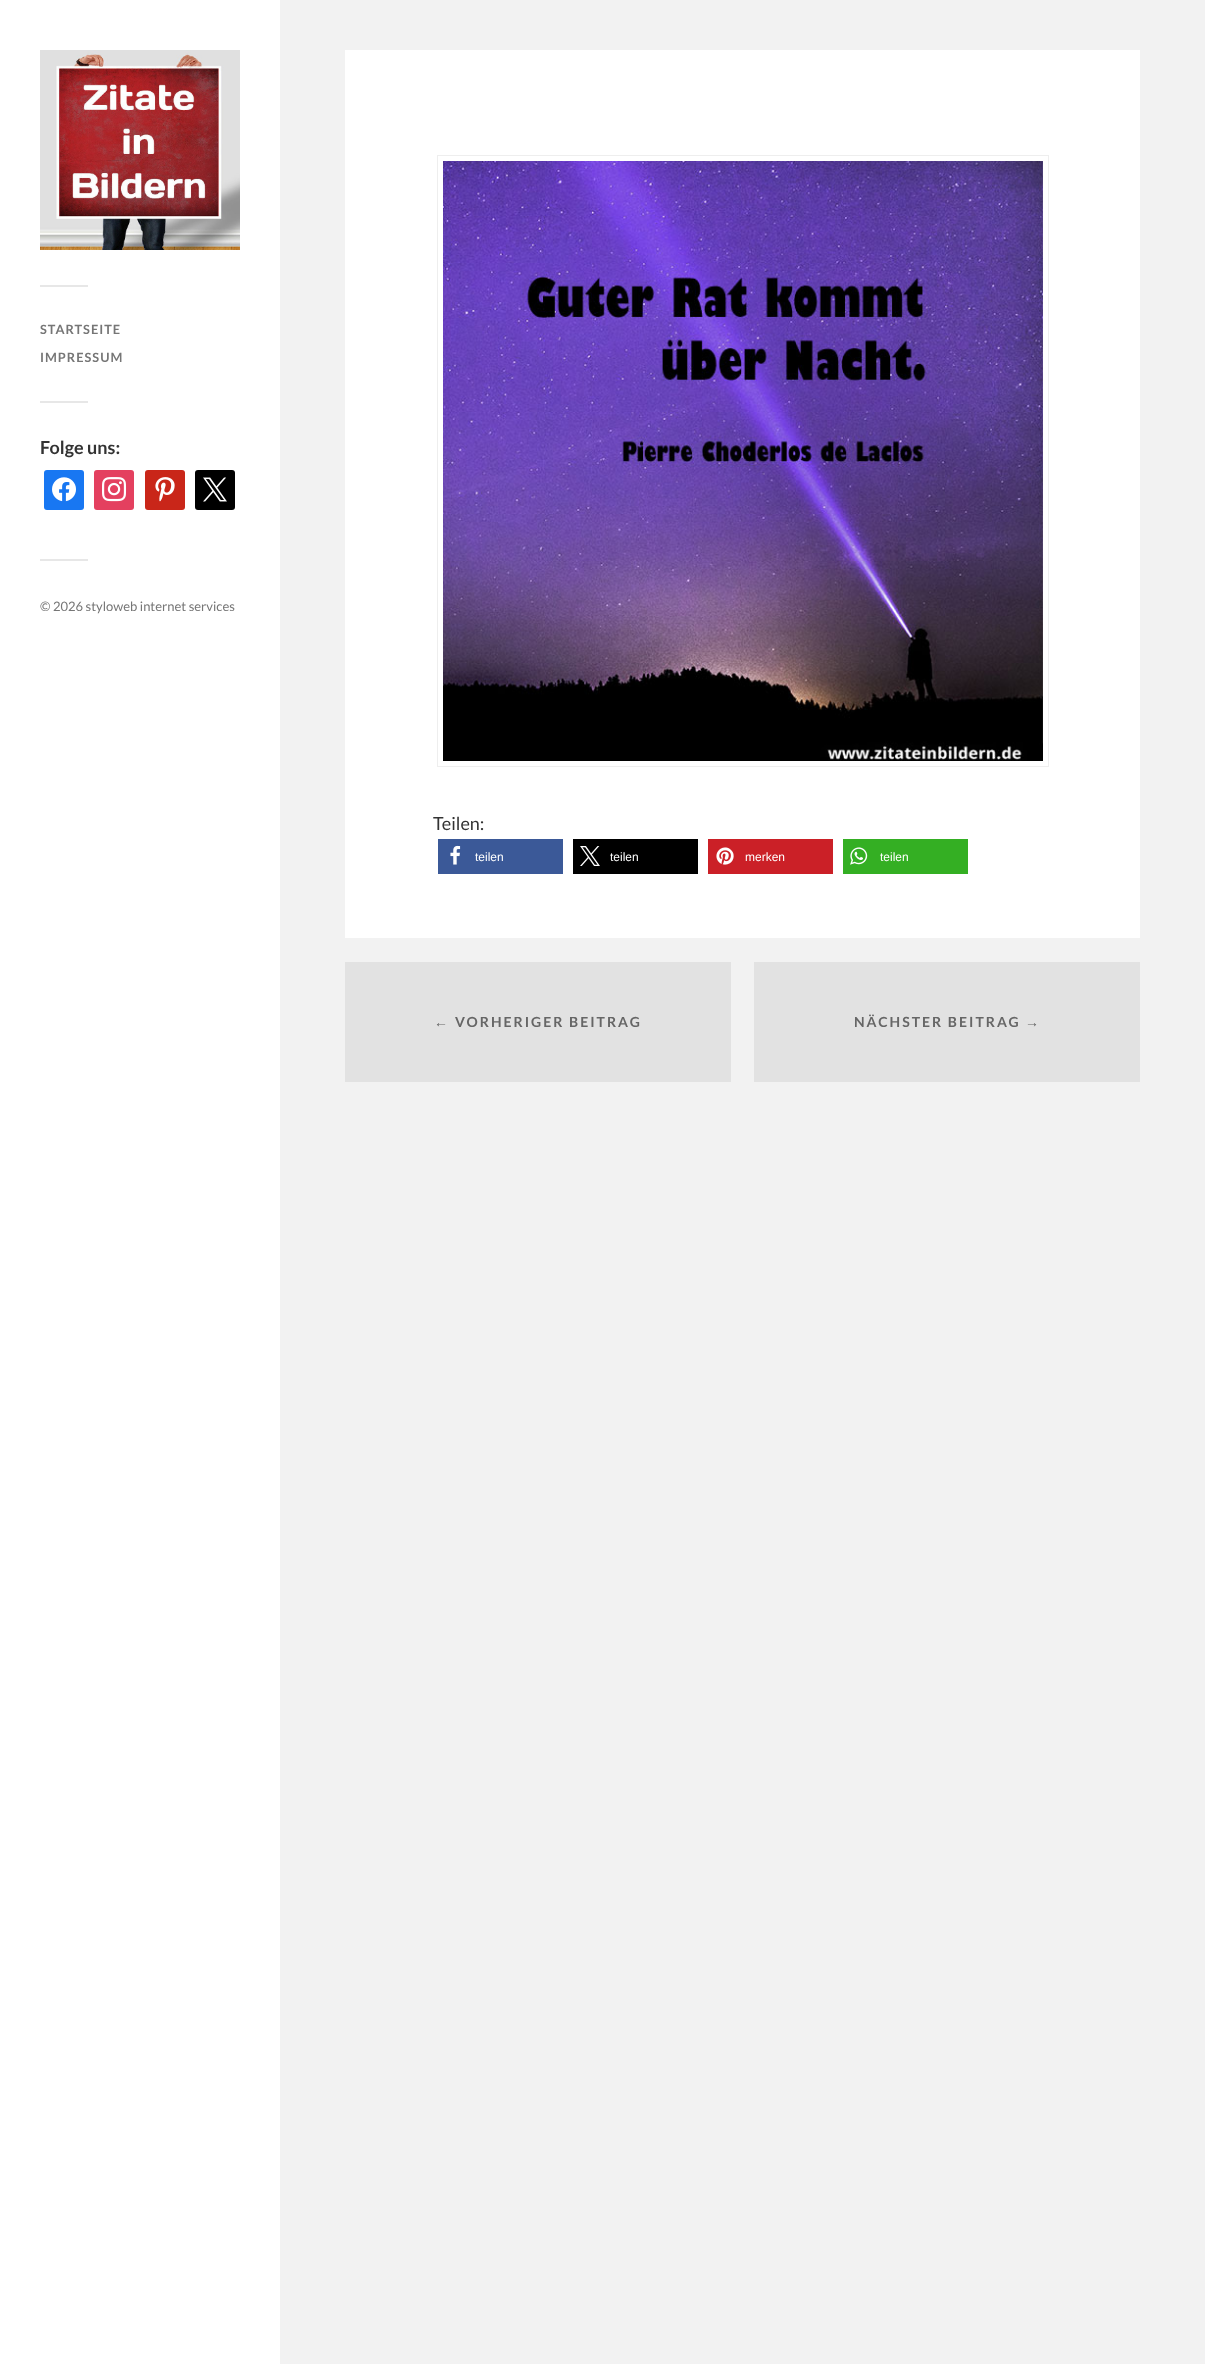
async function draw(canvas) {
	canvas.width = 1205;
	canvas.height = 2364;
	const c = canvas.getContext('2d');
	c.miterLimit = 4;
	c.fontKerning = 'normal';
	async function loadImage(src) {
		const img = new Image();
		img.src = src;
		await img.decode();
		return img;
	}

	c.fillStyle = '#f2f2f2';
	c.fillRect(0, 0, 1205, 2364);
	c.fillStyle = '#fff';
	c.fillRect(0, 0, 280, 2364);
	c.drawImage(await loadImage('img1.png'), 40, 50, 200, 200);
	c.fillStyle = '#e7e7e7';
	c.fillRect(40, 285, 48, 2);
	c.letterSpacing = '1px';
	c.font = 'bold 12.75px Lato';
	c.fillStyle = '#767676';
	c.fillText('STARTSEITE', 40, 334);
	c.fillText('IMPRESSUM', 40, 362);
	c.fillStyle = '#e7e7e7';
	c.fillRect(40, 401, 48, 2);
	c.letterSpacing = '0px';
	c.font = 'bold 18px Lato';
	c.fillStyle = '#333';
	c.fillText('Folge uns:', 40, 454);
	c.fillStyle = '#1877f2';
	c.beginPath();
	c.roundRect(44, 470, 40, 40, 3);
	c.fill();
	c.drawImage(await loadImage('img2.png'), 52, 477, 24, 25);
	c.fillStyle = '#e4405f';
	c.beginPath();
	c.roundRect(94, 470, 40, 40, 3);
	c.fill();
	c.drawImage(await loadImage('img3.png'), 102, 477, 25, 25);
	c.fillStyle = '#c92619';
	c.beginPath();
	c.roundRect(145, 470, 40, 40, 3);
	c.fill();
	c.drawImage(await loadImage('img4.png'), 155, 477, 20, 25);
	c.fillStyle = '#000';
	c.beginPath();
	c.roundRect(195, 470, 40, 40, 3);
	c.fill();
	c.drawImage(await loadImage('img5.png'), 203, 477, 24, 25);
	c.fillStyle = '#e7e7e7';
	c.fillRect(40, 559, 48, 2);
	c.font = '13px Lato';
	c.fillStyle = '#767676';
	c.fillText('© 2026 styloweb internet services', 40, 611);
	c.fillStyle = '#fff';
	c.fillRect(345, 50, 795, 888);
	c.strokeStyle = '#eee';
	c.strokeRect(437.5, 155.5, 611, 611);
	c.drawImage(await loadImage('img6.png'), 443, 161, 600, 600);
	c.font = '18px Lato';
	c.fillStyle = '#333';
	c.fillText('Teilen:', 433, 830);
	c.fillStyle = '#3b5998';
	c.fillRect(438, 839, 125, 35);
	c.drawImage(await loadImage('img7.png'), 450, 845, 11, 20);
	c.font = '12px Liberation Sans';
	c.fillStyle = '#fff';
	c.fillText('teilen', 475, 861);
	c.fillStyle = '#000';
	c.fillRect(573, 839, 125, 35);
	c.drawImage(await loadImage('img8.png'), 580, 846, 20, 20);
	c.fillStyle = '#fff';
	c.fillText('teilen', 610, 861);
	c.fillStyle = '#cb2027';
	c.fillRect(708, 839, 125, 35);
	c.drawImage(await loadImage('img9.png'), 716, 847, 18, 18);
	c.fillStyle = '#fff';
	c.fillText('merken', 745, 861);
	c.fillStyle = '#34af23';
	c.fillRect(843, 839, 125, 35);
	c.drawImage(await loadImage('img10.png'), 850, 847, 18, 18);
	c.fillStyle = '#fff';
	c.fillText('teilen', 880, 861);
	c.fillStyle = '#e2e2e2';
	c.fillRect(345, 962, 386, 120);
	c.letterSpacing = '2px';
	c.font = 'bold 14px Liberation Sans';
	c.fillStyle = '#666';
	c.fillText('←', 434, 1027);
	c.font = 'bold 14px Lato';
	c.fillText('VORHERIGER BEITRAG', 455, 1027);
	c.fillStyle = '#e2e2e2';
	c.fillRect(754, 962, 386, 120);
	c.fillStyle = '#666';
	c.fillText('NÄCHSTER BEITRAG', 854, 1027);
	c.font = 'bold 14px Liberation Sans';
	c.fillText('→', 1025, 1027);
}

draw(document.querySelector('canvas'));
